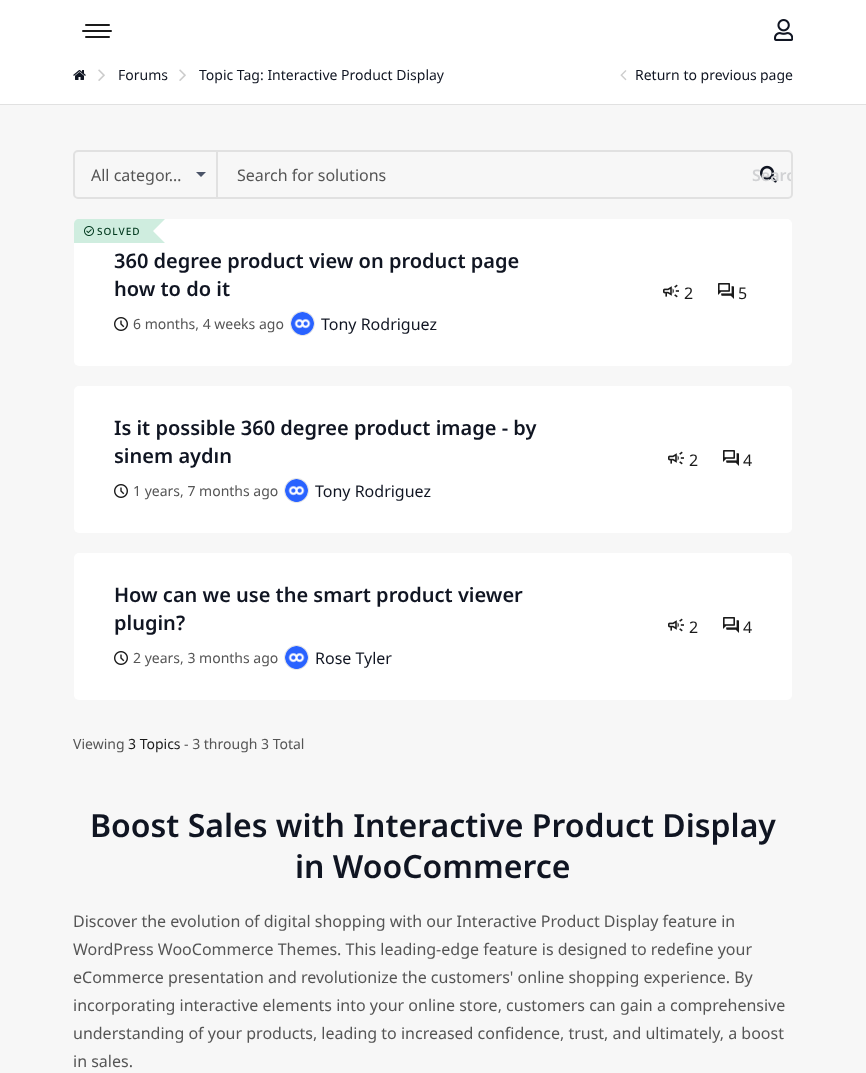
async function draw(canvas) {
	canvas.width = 866;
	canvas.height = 1073;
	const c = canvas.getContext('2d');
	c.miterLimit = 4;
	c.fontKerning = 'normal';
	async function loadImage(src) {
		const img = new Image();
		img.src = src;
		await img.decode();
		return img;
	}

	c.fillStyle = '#fff';
	c.fillRect(0, 0, 866, 1073);
	c.fillStyle = '#1a1a1a';
	c.beginPath();
	c.roundRect(82, 30, 30, 2, 1);
	c.fill();
	c.beginPath();
	c.roundRect(85, 24, 25, 2, 1);
	c.fill();
	c.beginPath();
	c.roundRect(85, 36, 25, 2, 1);
	c.fill();
	c.drawImage(await loadImage('img1.png'), 774, 19, 19, 22);
	c.fillStyle = '#e1e1e1';
	c.fillRect(0, 104, 866, 1);
	c.drawImage(await loadImage('img2.png'), 73, 70, 13, 10);
	c.drawImage(await loadImage('img3.png'), 98, 69, 7, 12);
	c.font = '14px Noto Sans';
	c.fillStyle = '#101522';
	c.fillText('Forums', 118, 80);
	c.drawImage(await loadImage('img3.png'), 179, 69, 7, 12);
	c.fillText('Topic Tag: Interactive Product Display', 199, 80);
	c.drawImage(await loadImage('img4.png'), 620, 70, 7, 11);
	c.fillText('Return to previous', 635, 80);
	c.save();
	c.beginPath();
	c.rect(558, 67, 250, 16);
	c.clip();
	c.fillText('page', 760, 80);
	c.restore();
	c.fillStyle = '#f7f7f7';
	c.fillRect(0, 105, 866, 968);
	c.beginPath();
	c.roundRect(74, 151, 718, 47, 4);
	c.strokeStyle = '#e1e1e1';
	c.lineWidth = 2;
	c.stroke();
	c.fillStyle = '#e1e1e1';
	c.fillRect(216, 152, 2, 45);
	c.font = '16px Noto Sans';
	c.fillStyle = '#555';
	c.fillText('All categor…', 91, 181);
	c.fillStyle = '#4b5468';
	c.beginPath();
	c.moveTo(196, 172);
	c.lineTo(206, 172);
	c.lineTo(201, 177);
	c.closePath();
	c.fill();
	c.fillStyle = '#555';
	c.fillText('Search for solutions', 237, 181);
	c.drawImage(await loadImage('img5.png'), 760, 165, 17, 18);
	c.save();
	c.beginPath();
	c.rect(746, 152, 45, 45);
	c.clip();
	c.font = '600 16px Noto Sans';
	c.fillStyle = '#d1d2d4';
	c.fillText('Searc', 752, 181);
	c.restore();
	c.fillStyle = '#fff';
	c.beginPath();
	c.roundRect(74, 219, 718, 147, 5);
	c.fill();
	c.fillStyle = '#cfeddf';
	c.beginPath();
	c.moveTo(79, 219);
	c.bezierCurveTo(76, 219, 74, 221, 74, 224);
	c.lineTo(74, 243);
	c.lineTo(141, 243);
	c.lineTo(141, 219);
	c.closePath();
	c.fill();
	c.drawImage(await loadImage('img6.png'), 84, 226, 10, 10);
	c.letterSpacing = '1px';
	c.font = '500 10px Noto Sans';
	c.fillStyle = '#00381d';
	c.fillText('SOLVED', 97, 235);
	c.fillStyle = '#cfeddf';
	c.beginPath();
	c.moveTo(141, 219);
	c.lineTo(165, 219);
	c.lineTo(153, 231);
	c.closePath();
	c.moveTo(165, 243);
	c.lineTo(141, 243);
	c.lineTo(153, 231);
	c.closePath();
	c.fill();
	c.fillRect(141, 219, 12, 24);
	c.letterSpacing = '0px';
	c.font = '600 20px Noto Sans';
	c.fillStyle = '#101522';
	c.fillText('360 degree product view on product page', 114, 268);
	c.fillText('how to do it', 114, 296);
	c.drawImage(await loadImage('img7.png'), 114, 317, 14, 14);
	c.font = '14px Noto Sans';
	c.fillStyle = '#555';
	c.fillText('6 months, 4 weeks ago', 133, 329);
	c.beginPath();
	c.arc(302.5, 323.5, 12, 0, 2 * Math.PI);
	c.lineWidth = 1;
	c.stroke();
	c.drawImage(await loadImage('img8.png'), 291, 312, 23, 23);
	c.font = '16px Noto Sans';
	c.fillStyle = '#101522';
	c.fillText('Tony Rodriguez', 321, 330);
	c.drawImage(await loadImage('img9.png'), 663, 284, 16, 14);
	c.fillStyle = '#1a1a1a';
	c.fillText('2', 684, 299);
	c.drawImage(await loadImage('img10.png'), 718, 283, 16, 16);
	c.fillText('5', 738, 299);
	c.fillStyle = '#fff';
	c.beginPath();
	c.roundRect(74, 386, 718, 147, 5);
	c.fill();
	c.font = '600 20px Noto Sans';
	c.fillStyle = '#101522';
	c.fillText('Is it possible 360 degree product image - by', 114, 435);
	c.fillText('sinem aydın', 114, 463);
	c.drawImage(await loadImage('img7.png'), 114, 484, 14, 14);
	c.font = '14px Noto Sans';
	c.fillStyle = '#555';
	c.fillText('1 years, 7 months ago', 133, 496);
	c.beginPath();
	c.arc(296.5, 490.5, 12, 0, 2 * Math.PI);
	c.stroke();
	c.drawImage(await loadImage('img11.png'), 285, 479, 23, 23);
	c.font = '16px Noto Sans';
	c.fillStyle = '#101522';
	c.fillText('Tony Rodriguez', 315, 497);
	c.drawImage(await loadImage('img9.png'), 668, 451, 16, 14);
	c.fillStyle = '#1a1a1a';
	c.fillText('2', 689, 466);
	c.drawImage(await loadImage('img10.png'), 723, 450, 16, 16);
	c.fillText('4', 743, 466);
	c.fillStyle = '#fff';
	c.beginPath();
	c.roundRect(74, 553, 718, 147, 5);
	c.fill();
	c.font = '600 20px Noto Sans';
	c.fillStyle = '#101522';
	c.fillText('How can we use the smart product viewer', 114, 602);
	c.fillText('plugin?', 114, 630);
	c.drawImage(await loadImage('img7.png'), 114, 651, 14, 14);
	c.font = '14px Noto Sans';
	c.fillStyle = '#555';
	c.fillText('2 years, 3 months ago', 133, 663);
	c.beginPath();
	c.arc(296.5, 657.5, 12, 0, 2 * Math.PI);
	c.stroke();
	c.drawImage(await loadImage('img11.png'), 285, 646, 23, 23);
	c.font = '16px Noto Sans';
	c.fillStyle = '#101522';
	c.fillText('Rose Tyler', 315, 664);
	c.drawImage(await loadImage('img9.png'), 668, 618, 16, 14);
	c.fillStyle = '#1a1a1a';
	c.fillText('2', 689, 633);
	c.drawImage(await loadImage('img10.png'), 723, 617, 16, 16);
	c.fillText('4', 743, 633);
	c.font = '14px Noto Sans';
	c.fillStyle = '#555';
	c.fillText('Viewing', 73, 749);
	c.fillStyle = '#1a1a1a';
	c.fillText('3 Topics', 128, 749);
	c.fillStyle = '#555';
	c.fillText('- 3 through 3 Total', 184, 749);
	c.font = '600 32px Noto Sans';
	c.fillStyle = '#101522';
	c.fillText('Boost Sales with Interactive Product Display', 90, 837);
	c.fillText('in WooCommerce', 295, 878);
	c.font = '16px Noto Sans';
	c.fillStyle = '#555';
	for (const [text, x, y] of [
		['Discover the evolution of digital shopping with our Interactive Product Display feature in', 73, 927],
		['WordPress WooCommerce Themes. This leading-edge feature is designed to redefine your', 73, 955],
		['eCommerce presentation and revolutionize the customers\' online shopping experience. By', 73, 983],
		['incorporating interactive elements into your online store, customers can gain a comprehensive', 73, 1011],
		['understanding of your products, leading to increased confidence, trust, and ultimately, a boost', 73, 1039],
		['in sales.', 73, 1067],
	]) {
		c.fillText(text, x, y);
	}
}

draw(document.querySelector('canvas'));
